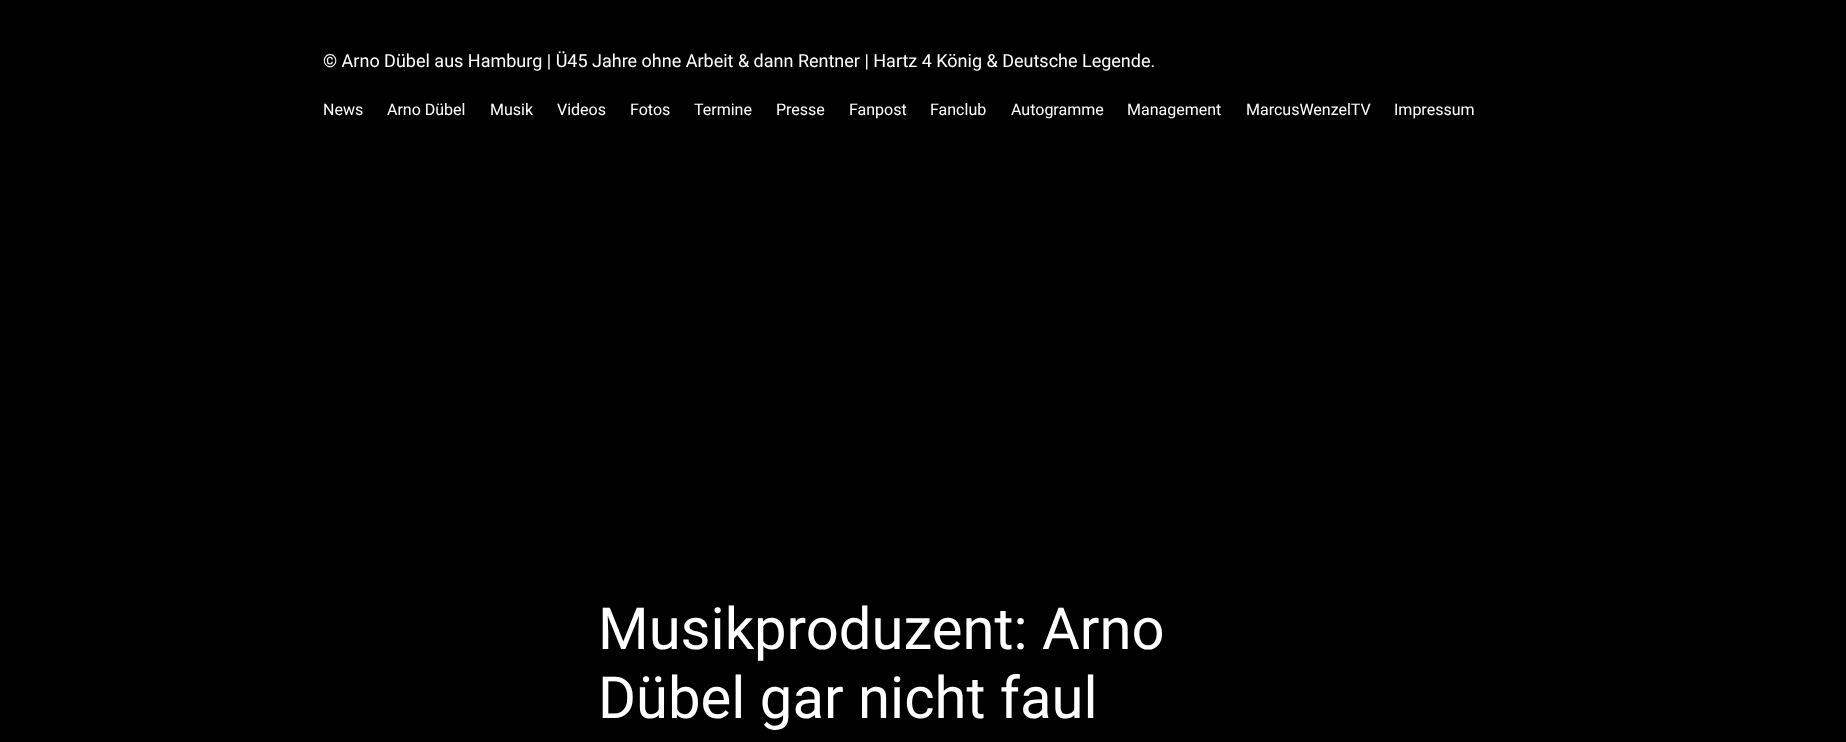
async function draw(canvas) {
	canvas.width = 1846;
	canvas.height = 742;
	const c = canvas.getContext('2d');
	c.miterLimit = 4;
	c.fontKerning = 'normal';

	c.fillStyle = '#000';
	c.fillRect(0, 0, 1846, 742);
	c.font = '18px Roboto';
	c.fillStyle = '#fff';
	c.fillText('© Arno Dübel aus Hamburg | Ü45 Jahre ohne Arbeit & dann Rentner | Hartz 4 König & Deutsche Legende.', 323, 67);
	c.font = '16px Roboto';
	for (const [text, x, y] of [
		['News', 323, 115],
		['Arno Dübel', 387, 115],
		['Musik', 490, 115],
		['Videos', 557, 115],
		['Fotos', 630, 115],
		['Termine', 694, 115],
		['Presse', 776, 115],
		['Fanpost', 849, 115],
		['Fanclub', 930, 115],
		['Autogramme', 1011, 115],
		['Management', 1127, 115],
		['MarcusWenzelTV', 1246, 115],
		['Impressum', 1394, 115],
	]) {
		c.fillText(text, x, y);
	}
	c.font = '58px Roboto';
	c.fillText('Musikproduzent: Arno', 598, 649);
	c.fillText('Dübel gar nicht faul', 598, 718);
}

draw(document.querySelector('canvas'));
